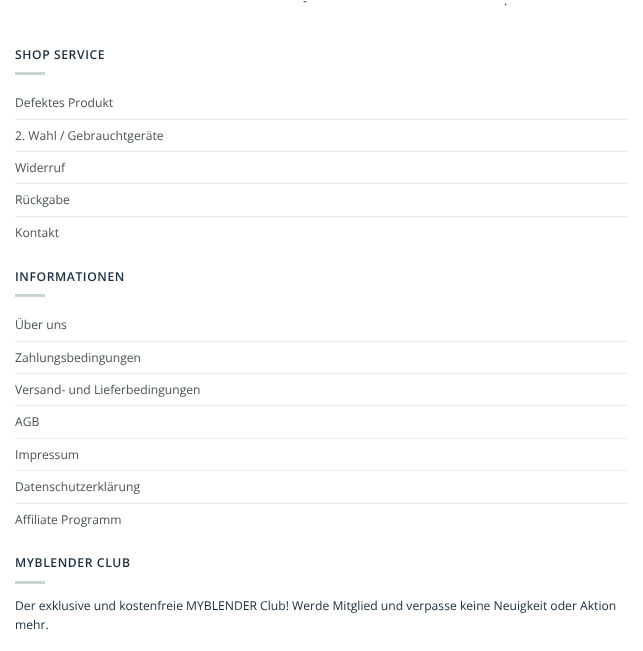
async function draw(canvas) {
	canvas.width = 643;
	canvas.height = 651;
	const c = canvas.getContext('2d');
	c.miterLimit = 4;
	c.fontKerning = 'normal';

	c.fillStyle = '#fff';
	c.fillRect(0, 0, 643, 651);
	c.font = '12.15px Open Sans';
	c.fillStyle = '#1a2e3f';
	c.fillText('-', 303, 5);
	c.fillText('.', 504, 5);
	c.letterSpacing = '0.6px';
	c.font = '600 12.15px Open Sans';
	c.fillText('SHOP SERVICE', 15, 59);
	c.fillStyle = '#c9d3d4';
	c.fillRect(15, 72, 30, 3);
	c.letterSpacing = '0px';
	c.font = '12.15px Open Sans';
	c.fillStyle = '#4a5456';
	c.fillText('Defektes Produkt', 15, 107);
	c.fillStyle = '#ececec';
	c.fillRect(15, 119, 613, 1);
	c.fillStyle = '#4a5456';
	c.fillText('2. Wahl / Gebrauchtgeräte', 15, 140);
	c.fillStyle = '#ececec';
	c.fillRect(15, 151, 613, 1);
	c.fillStyle = '#4a5456';
	c.fillText('Widerruf', 15, 172);
	c.fillStyle = '#ececec';
	c.fillRect(15, 183, 613, 1);
	c.fillStyle = '#4a5456';
	c.fillText('Rückgabe', 15, 204);
	c.fillStyle = '#ececec';
	c.fillRect(15, 216, 613, 1);
	c.fillStyle = '#4a5456';
	c.fillText('Kontakt', 15, 237);
	c.letterSpacing = '0.6px';
	c.font = '600 12.15px Open Sans';
	c.fillStyle = '#1a2e3f';
	c.fillText('INFORMATIONEN', 15, 281);
	c.fillStyle = '#c9d3d4';
	c.fillRect(15, 294, 30, 3);
	c.letterSpacing = '0px';
	c.font = '12.15px Open Sans';
	c.fillStyle = '#4a5456';
	c.fillText('Über uns', 15, 329);
	c.fillStyle = '#ececec';
	c.fillRect(15, 341, 613, 1);
	c.fillStyle = '#4a5456';
	c.fillText('Zahlungsbedingungen', 15, 362);
	c.fillStyle = '#ececec';
	c.fillRect(15, 373, 613, 1);
	c.fillStyle = '#4a5456';
	c.fillText('Versand- und Lieferbedingungen', 15, 394);
	c.fillStyle = '#ececec';
	c.fillRect(15, 405, 613, 1);
	c.fillStyle = '#4a5456';
	c.fillText('AGB', 15, 426);
	c.fillStyle = '#ececec';
	c.fillRect(15, 438, 613, 1);
	c.fillStyle = '#4a5456';
	c.fillText('Impressum', 15, 459);
	c.fillStyle = '#ececec';
	c.fillRect(15, 470, 613, 1);
	c.fillStyle = '#4a5456';
	c.fillText('Datenschutzerklärung', 15, 491);
	c.fillStyle = '#ececec';
	c.fillRect(15, 503, 613, 1);
	c.fillStyle = '#4a5456';
	c.fillText('Affiliate Programm', 15, 524);
	c.letterSpacing = '0.6px';
	c.font = '600 12.15px Open Sans';
	c.fillStyle = '#1a2e3f';
	c.fillText('MYBLENDER CLUB', 15, 567);
	c.fillStyle = '#c9d3d4';
	c.fillRect(15, 581, 30, 3);
	c.letterSpacing = '0px';
	c.font = '12.15px Open Sans';
	c.fillStyle = '#1a2e3f';
	c.fillText('Der exklusive und kostenfreie MYBLENDER Club! Werde Mitglied und verpasse keine Neuigkeit oder Aktion', 15, 610);
	c.fillText('mehr.', 15, 629);
}

draw(document.querySelector('canvas'));
